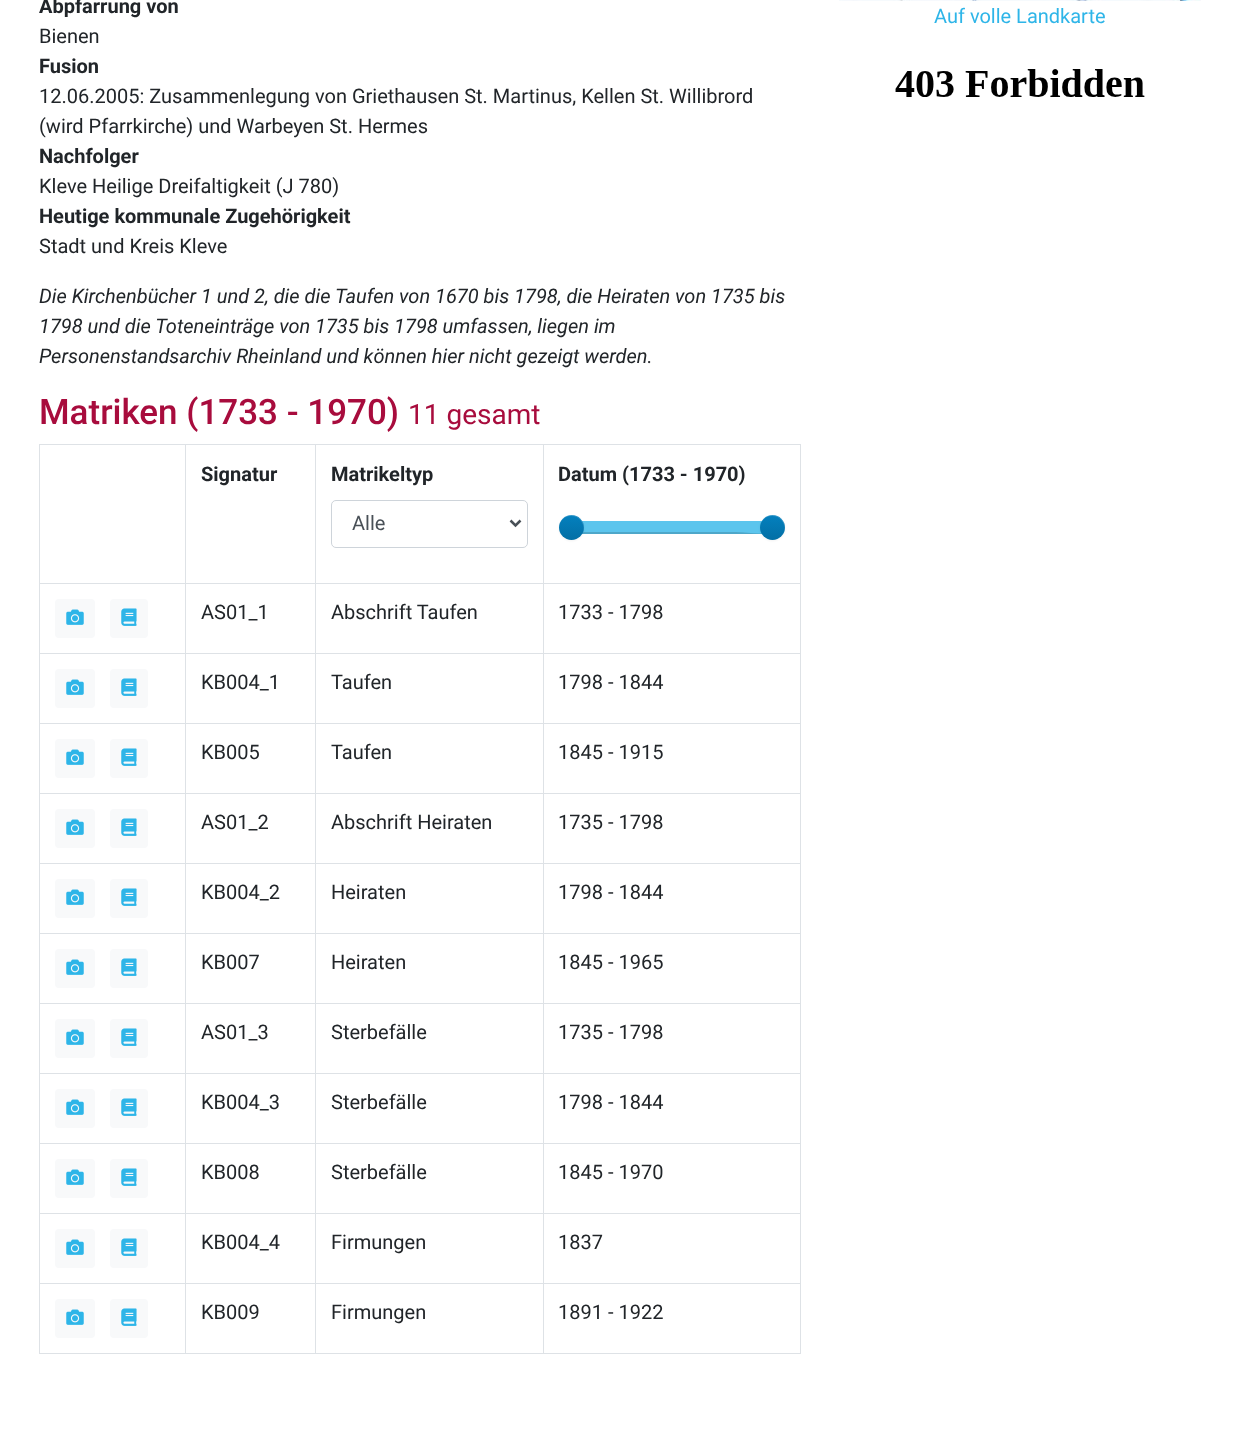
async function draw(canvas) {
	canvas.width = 1240;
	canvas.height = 1434;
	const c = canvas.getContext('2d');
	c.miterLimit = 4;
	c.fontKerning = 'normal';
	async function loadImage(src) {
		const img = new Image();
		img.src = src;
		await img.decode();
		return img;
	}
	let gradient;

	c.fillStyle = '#fff';
	c.fillRect(0, 0, 1240, 1434);
	c.font = 'bold 20px Roboto';
	c.fillStyle = '#212529';
	c.fillText('Abpfarrung von', 39, 13);
	c.font = '20px Roboto';
	c.fillText('Bienen', 39, 43);
	c.font = 'bold 20px Roboto';
	c.fillText('Fusion', 39, 73);
	c.font = '20px Roboto';
	c.fillText('12.06.2005: Zusammenlegung von Griethausen St. Martinus, Kellen St. Willibrord', 39, 103);
	c.fillText('(wird Pfarrkirche) und Warbeyen St. Hermes', 39, 133);
	c.font = 'bold 20px Roboto';
	c.fillText('Nachfolger', 39, 163);
	c.font = '20px Roboto';
	c.fillText('Kleve Heilige Dreifaltigkeit (J 780)', 39, 193);
	c.font = 'bold 20px Roboto';
	c.fillText('Heutige kommunale Zugehörigkeit', 39, 223);
	c.font = '20px Roboto';
	c.fillText('Stadt und Kreis Kleve', 39, 253);
	c.font = 'italic 20px Roboto';
	for (const [text, x, y] of [
		['Die Kirchenbücher 1 und 2, die die Taufen von 1670 bis 1798, die Heiraten von 1735 bis', 39, 303],
		['1798 und die Toteneinträge von 1735 bis 1798 umfassen, liegen im', 39, 333],
		['Personenstandsarchiv Rheinland und können hier nicht gezeigt werden.', 39, 363],
	]) {
		c.fillText(text, x, y);
	}
	c.font = '500 35px Roboto';
	c.fillStyle = '#a80c3d';
	c.fillText('Matriken (1733 - 1970)', 39, 424);
	c.font = '28px Roboto';
	c.fillText('11 gesamt', 408, 424);
	for (const [x, y, w, h, color] of [
		[543, 444, 258, 1, '#dee2e6'],
		[543, 583, 258, 1, '#dee2e6'],
		[543, 653, 258, 1, '#dee2e6'],
		[543, 723, 258, 1, '#dee2e6'],
		[543, 793, 258, 1, '#dee2e6'],
		[543, 863, 258, 1, '#dee2e6'],
		[543, 933, 258, 1, '#dee2e6'],
		[543, 1003, 258, 1, '#dee2e6'],
		[543, 1073, 258, 1, '#dee2e6'],
		[543, 1143, 258, 1, '#dee2e6'],
		[543, 1213, 258, 1, '#dee2e6'],
		[543, 1283, 258, 1, '#dee2e6'],
		[800, 1283, 1, 71, '#dee2e6'],
		[543, 1353, 258, 1, '#dee2e6'],
		[543, 1283, 1, 71, '#dee2e6'],
		[315, 1283, 229, 1, '#dee2e6'],
		[543, 1213, 1, 71, '#dee2e6'],
		[315, 1213, 229, 1, '#dee2e6'],
		[543, 1143, 1, 71, '#dee2e6'],
		[315, 1143, 229, 1, '#dee2e6'],
		[543, 1073, 1, 71, '#dee2e6'],
		[315, 1073, 229, 1, '#dee2e6'],
		[543, 1003, 1, 71, '#dee2e6'],
		[315, 1003, 229, 1, '#dee2e6'],
		[543, 933, 1, 71, '#dee2e6'],
		[315, 933, 229, 1, '#dee2e6'],
		[543, 863, 1, 71, '#dee2e6'],
		[315, 863, 229, 1, '#dee2e6'],
		[543, 793, 1, 71, '#dee2e6'],
		[315, 793, 229, 1, '#dee2e6'],
		[543, 723, 1, 71, '#dee2e6'],
		[315, 723, 229, 1, '#dee2e6'],
		[543, 653, 1, 71, '#dee2e6'],
		[315, 653, 229, 1, '#dee2e6'],
		[543, 583, 1, 71, '#dee2e6'],
		[315, 583, 229, 1, '#dee2e6'],
		[543, 444, 1, 140, '#dee2e6'],
		[315, 444, 229, 1, '#dee2e6'],
		[315, 1353, 229, 1, '#dee2e6'],
		[315, 1283, 1, 71, '#dee2e6'],
		[185, 1283, 131, 1, '#dee2e6'],
		[315, 1213, 1, 71, '#dee2e6'],
		[185, 1213, 131, 1, '#dee2e6'],
		[315, 1143, 1, 71, '#dee2e6'],
		[185, 1143, 131, 1, '#dee2e6'],
		[315, 1073, 1, 71, '#dee2e6'],
		[185, 1073, 131, 1, '#dee2e6'],
		[315, 1003, 1, 71, '#dee2e6'],
		[185, 1003, 131, 1, '#dee2e6'],
		[315, 933, 1, 71, '#dee2e6'],
		[185, 933, 131, 1, '#dee2e6'],
		[315, 863, 1, 71, '#dee2e6'],
		[185, 863, 131, 1, '#dee2e6'],
		[315, 793, 1, 71, '#dee2e6'],
		[185, 793, 131, 1, '#dee2e6'],
		[315, 723, 1, 71, '#dee2e6'],
		[185, 723, 131, 1, '#dee2e6'],
		[315, 653, 1, 71, '#dee2e6'],
		[185, 653, 131, 1, '#dee2e6'],
		[315, 583, 1, 71, '#dee2e6'],
		[185, 583, 131, 1, '#dee2e6'],
		[315, 444, 1, 140, '#dee2e6'],
		[185, 444, 131, 1, '#dee2e6'],
		[185, 1353, 131, 1, '#dee2e6'],
		[185, 1283, 1, 71, '#dee2e6'],
		[39, 1283, 147, 1, '#dee2e6'],
		[185, 1213, 1, 71, '#dee2e6'],
		[39, 1213, 147, 1, '#dee2e6'],
		[185, 1143, 1, 71, '#dee2e6'],
		[39, 1143, 147, 1, '#dee2e6'],
		[185, 1073, 1, 71, '#dee2e6'],
		[39, 1073, 147, 1, '#dee2e6'],
		[185, 1003, 1, 71, '#dee2e6'],
		[39, 1003, 147, 1, '#dee2e6'],
		[185, 933, 1, 71, '#dee2e6'],
		[39, 933, 147, 1, '#dee2e6'],
		[185, 863, 1, 71, '#dee2e6'],
		[39, 863, 147, 1, '#dee2e6'],
		[185, 793, 1, 71, '#dee2e6'],
		[39, 793, 147, 1, '#dee2e6'],
		[185, 723, 1, 71, '#dee2e6'],
		[39, 723, 147, 1, '#dee2e6'],
		[185, 653, 1, 71, '#dee2e6'],
		[39, 653, 147, 1, '#dee2e6'],
		[185, 583, 1, 71, '#dee2e6'],
		[39, 583, 147, 1, '#dee2e6'],
		[185, 444, 1, 140, '#dee2e6'],
		[39, 444, 147, 1, '#dee2e6'],
		[39, 1353, 147, 1, '#dee2e6'],
		[39, 1283, 1, 71, '#dee2e6'],
		[39, 1213, 1, 71, '#dee2e6'],
		[39, 1143, 1, 71, '#dee2e6'],
		[39, 1073, 1, 71, '#dee2e6'],
		[39, 1003, 1, 71, '#dee2e6'],
		[39, 933, 1, 71, '#dee2e6'],
		[39, 863, 1, 71, '#dee2e6'],
		[39, 793, 1, 71, '#dee2e6'],
		[39, 723, 1, 71, '#dee2e6'],
		[39, 653, 1, 71, '#dee2e6'],
		[39, 583, 1, 71, '#dee2e6'],
		[39, 444, 1, 140, '#dee2e6'],
	]) {
		c.fillStyle = color;
		c.fillRect(x, y, w, h);
	}
	c.font = 'bold 20px Roboto';
	c.fillStyle = '#212529';
	c.fillText('Signatur', 201, 481);
	c.fillText('Matrikeltyp', 331, 481);
	c.beginPath();
	c.roundRect(331.5, 500.5, 196, 47, 4.5);
	c.strokeStyle = '#ced4da';
	c.stroke();
	c.beginPath();
	c.moveTo(510.5, 520.5);
	c.lineTo(515.5, 525.5);
	c.lineTo(520.5, 520.5);
	c.strokeStyle = '#495057';
	c.lineWidth = 2.5;
	c.stroke();
	c.font = '20px Roboto';
	c.fillStyle = '#495057';
	c.fillText('Alle', 352, 530);
	for (const [x, y, w, h, color] of [
		[800, 1213, 1, 71, '#dee2e6'],
		[800, 1143, 1, 71, '#dee2e6'],
		[800, 1073, 1, 71, '#dee2e6'],
		[800, 1003, 1, 71, '#dee2e6'],
		[800, 933, 1, 71, '#dee2e6'],
		[800, 863, 1, 71, '#dee2e6'],
		[800, 793, 1, 71, '#dee2e6'],
		[800, 723, 1, 71, '#dee2e6'],
		[800, 653, 1, 71, '#dee2e6'],
		[800, 583, 1, 71, '#dee2e6'],
		[800, 444, 1, 140, '#dee2e6'],
	]) {
		c.fillStyle = color;
		c.fillRect(x, y, w, h);
	}
	c.font = 'bold 20px Roboto';
	c.fillStyle = '#212529';
	c.fillText('Datum (1733 - 1970)', 558, 481);
	c.fillStyle = '#5cc5ed';
	c.fillRect(582, 521, 180, 13);
	c.fillStyle = '#00000026';
	c.beginPath();
	c.moveTo(571, 528);
	c.bezierCurveTo(571, 531, 572, 534, 576, 534);
	c.lineTo(769, 534);
	c.bezierCurveTo(774, 533, 775, 525, 771, 522);
	c.lineTo(772, 526);
	c.bezierCurveTo(774, 538, 750, 532, 736, 532);
	c.lineTo(575, 532);
	c.bezierCurveTo(573, 532, 572, 530, 571, 528);
	c.closePath();
	c.fill();
	c.fillStyle = '#0000000d';
	c.filter = 'blur(1px)';
	c.beginPath();
	c.roundRect(559, 516, 25, 25, 12.5);
	c.fill();
	c.filter = 'none';
	gradient = c.createLinearGradient(571, 515, 571, 540);
	gradient.addColorStop(0, '#0480be');
	gradient.addColorStop(1, '#036fa5');
	c.fillStyle = gradient;
	c.beginPath();
	c.arc(571.5, 527.5, 12.5, 0, 2 * Math.PI);
	c.fill();
	c.fillStyle = '#ffffff33';
	c.beginPath();
	c.moveTo(571, 516);
	c.bezierCurveTo(580.5, 516, 584.5, 524, 583.5, 531);
	c.bezierCurveTo(587, 517.5, 569, 508.5, 561, 520.5);
	c.bezierCurveTo(559.5, 522.5, 559, 525.5, 559, 528);
	c.bezierCurveTo(559, 522, 563, 516, 571, 516);
	c.closePath();
	c.fill();
	c.fillStyle = '#0000000d';
	c.filter = 'blur(1px)';
	c.beginPath();
	c.roundRect(760, 516, 25, 25, 12.5);
	c.fill();
	c.filter = 'none';
	gradient = c.createLinearGradient(773, 515, 773, 540);
	gradient.addColorStop(0, '#0480be');
	gradient.addColorStop(1, '#036fa5');
	c.fillStyle = gradient;
	c.beginPath();
	c.arc(772.5, 527.5, 12.5, 0, 2 * Math.PI);
	c.fill();
	c.fillStyle = '#ffffff33';
	c.beginPath();
	c.moveTo(772, 516);
	c.bezierCurveTo(781.5, 516, 785.5, 524, 784.5, 531);
	c.bezierCurveTo(788, 517.5, 770, 508.5, 762, 520.5);
	c.bezierCurveTo(760.5, 522.5, 760, 525.5, 760, 528);
	c.bezierCurveTo(760, 522, 764, 516, 772, 516);
	c.closePath();
	c.fill();
	c.fillStyle = '#f8f9fa';
	c.beginPath();
	c.roundRect(55, 599, 40, 39, 4);
	c.fill();
	c.drawImage(await loadImage('img1.png'), 66, 609, 18, 16);
	c.beginPath();
	c.roundRect(110, 599, 38, 39, 4);
	c.fill();
	c.drawImage(await loadImage('img2.png'), 121, 608, 16, 18);
	c.font = '20px Roboto';
	c.fillStyle = '#212529';
	for (const [text, x, y] of [
		['AS01_1', 201, 619],
		['Abschrift Taufen', 331, 619],
		['1733 - 1798', 558, 619],
	]) {
		c.fillText(text, x, y);
	}
	c.fillStyle = '#f8f9fa';
	c.beginPath();
	c.roundRect(55, 669, 40, 39, 4);
	c.fill();
	c.drawImage(await loadImage('img1.png'), 66, 679, 18, 16);
	c.beginPath();
	c.roundRect(110, 669, 38, 39, 4);
	c.fill();
	c.drawImage(await loadImage('img2.png'), 121, 678, 16, 18);
	c.fillStyle = '#212529';
	for (const [text, x, y] of [
		['KB004_1', 201, 689],
		['Taufen', 331, 689],
		['1798 - 1844', 558, 689],
	]) {
		c.fillText(text, x, y);
	}
	c.fillStyle = '#f8f9fa';
	c.beginPath();
	c.roundRect(55, 739, 40, 39, 4);
	c.fill();
	c.drawImage(await loadImage('img1.png'), 66, 749, 18, 16);
	c.beginPath();
	c.roundRect(110, 739, 38, 39, 4);
	c.fill();
	c.drawImage(await loadImage('img2.png'), 121, 748, 16, 18);
	c.fillStyle = '#212529';
	for (const [text, x, y] of [
		['KB005', 201, 759],
		['Taufen', 331, 759],
		['1845 - 1915', 558, 759],
	]) {
		c.fillText(text, x, y);
	}
	c.fillStyle = '#f8f9fa';
	c.beginPath();
	c.roundRect(55, 809, 40, 39, 4);
	c.fill();
	c.drawImage(await loadImage('img1.png'), 66, 819, 18, 16);
	c.beginPath();
	c.roundRect(110, 809, 38, 39, 4);
	c.fill();
	c.drawImage(await loadImage('img2.png'), 121, 818, 16, 18);
	c.fillStyle = '#212529';
	for (const [text, x, y] of [
		['AS01_2', 201, 829],
		['Abschrift Heiraten', 331, 829],
		['1735 - 1798', 558, 829],
	]) {
		c.fillText(text, x, y);
	}
	c.fillStyle = '#f8f9fa';
	c.beginPath();
	c.roundRect(55, 879, 40, 39, 4);
	c.fill();
	c.drawImage(await loadImage('img1.png'), 66, 889, 18, 16);
	c.beginPath();
	c.roundRect(110, 879, 38, 39, 4);
	c.fill();
	c.drawImage(await loadImage('img2.png'), 121, 888, 16, 18);
	c.fillStyle = '#212529';
	for (const [text, x, y] of [
		['KB004_2', 201, 899],
		['Heiraten', 331, 899],
		['1798 - 1844', 558, 899],
	]) {
		c.fillText(text, x, y);
	}
	c.fillStyle = '#f8f9fa';
	c.beginPath();
	c.roundRect(55, 949, 40, 39, 4);
	c.fill();
	c.drawImage(await loadImage('img1.png'), 66, 959, 18, 16);
	c.beginPath();
	c.roundRect(110, 949, 38, 39, 4);
	c.fill();
	c.drawImage(await loadImage('img2.png'), 121, 958, 16, 18);
	c.fillStyle = '#212529';
	for (const [text, x, y] of [
		['KB007', 201, 969],
		['Heiraten', 331, 969],
		['1845 - 1965', 558, 969],
	]) {
		c.fillText(text, x, y);
	}
	c.fillStyle = '#f8f9fa';
	c.beginPath();
	c.roundRect(55, 1019, 40, 39, 4);
	c.fill();
	c.drawImage(await loadImage('img1.png'), 66, 1029, 18, 16);
	c.beginPath();
	c.roundRect(110, 1019, 38, 39, 4);
	c.fill();
	c.drawImage(await loadImage('img2.png'), 121, 1028, 16, 18);
	c.fillStyle = '#212529';
	for (const [text, x, y] of [
		['AS01_3', 201, 1039],
		['Sterbefälle', 331, 1039],
		['1735 - 1798', 558, 1039],
	]) {
		c.fillText(text, x, y);
	}
	c.fillStyle = '#f8f9fa';
	c.beginPath();
	c.roundRect(55, 1089, 40, 39, 4);
	c.fill();
	c.drawImage(await loadImage('img1.png'), 66, 1099, 18, 16);
	c.beginPath();
	c.roundRect(110, 1089, 38, 39, 4);
	c.fill();
	c.drawImage(await loadImage('img2.png'), 121, 1098, 16, 18);
	c.fillStyle = '#212529';
	for (const [text, x, y] of [
		['KB004_3', 201, 1109],
		['Sterbefälle', 331, 1109],
		['1798 - 1844', 558, 1109],
	]) {
		c.fillText(text, x, y);
	}
	c.fillStyle = '#f8f9fa';
	c.beginPath();
	c.roundRect(55, 1159, 40, 39, 4);
	c.fill();
	c.drawImage(await loadImage('img1.png'), 66, 1169, 18, 16);
	c.beginPath();
	c.roundRect(110, 1159, 38, 39, 4);
	c.fill();
	c.drawImage(await loadImage('img2.png'), 121, 1168, 16, 18);
	c.fillStyle = '#212529';
	for (const [text, x, y] of [
		['KB008', 201, 1179],
		['Sterbefälle', 331, 1179],
		['1845 - 1970', 558, 1179],
	]) {
		c.fillText(text, x, y);
	}
	c.fillStyle = '#f8f9fa';
	c.beginPath();
	c.roundRect(55, 1229, 40, 39, 4);
	c.fill();
	c.drawImage(await loadImage('img1.png'), 66, 1239, 18, 16);
	c.beginPath();
	c.roundRect(110, 1229, 38, 39, 4);
	c.fill();
	c.drawImage(await loadImage('img2.png'), 121, 1238, 16, 18);
	c.fillStyle = '#212529';
	for (const [text, x, y] of [
		['KB004_4', 201, 1249],
		['Firmungen', 331, 1249],
		['1837', 558, 1249],
	]) {
		c.fillText(text, x, y);
	}
	c.fillStyle = '#f8f9fa';
	c.beginPath();
	c.roundRect(55, 1299, 40, 39, 4);
	c.fill();
	c.drawImage(await loadImage('img1.png'), 66, 1309, 18, 16);
	c.beginPath();
	c.roundRect(110, 1299, 38, 39, 4);
	c.fill();
	c.drawImage(await loadImage('img2.png'), 121, 1308, 16, 18);
	c.fillStyle = '#212529';
	for (const [text, x, y] of [
		['KB009', 201, 1319],
		['Firmungen', 331, 1319],
		['1891 - 1922', 558, 1319],
	]) {
		c.fillText(text, x, y);
	}
	c.drawImage(await loadImage('img3.png'), 839, 0, 362, 1);
	c.fillStyle = '#2eb5e8';
	c.fillText('Auf volle Landkarte', 934, 23);
	c.drawImage(await loadImage('img4.png'), 895, 69, 250, 28);
}

draw(document.querySelector('canvas'));
